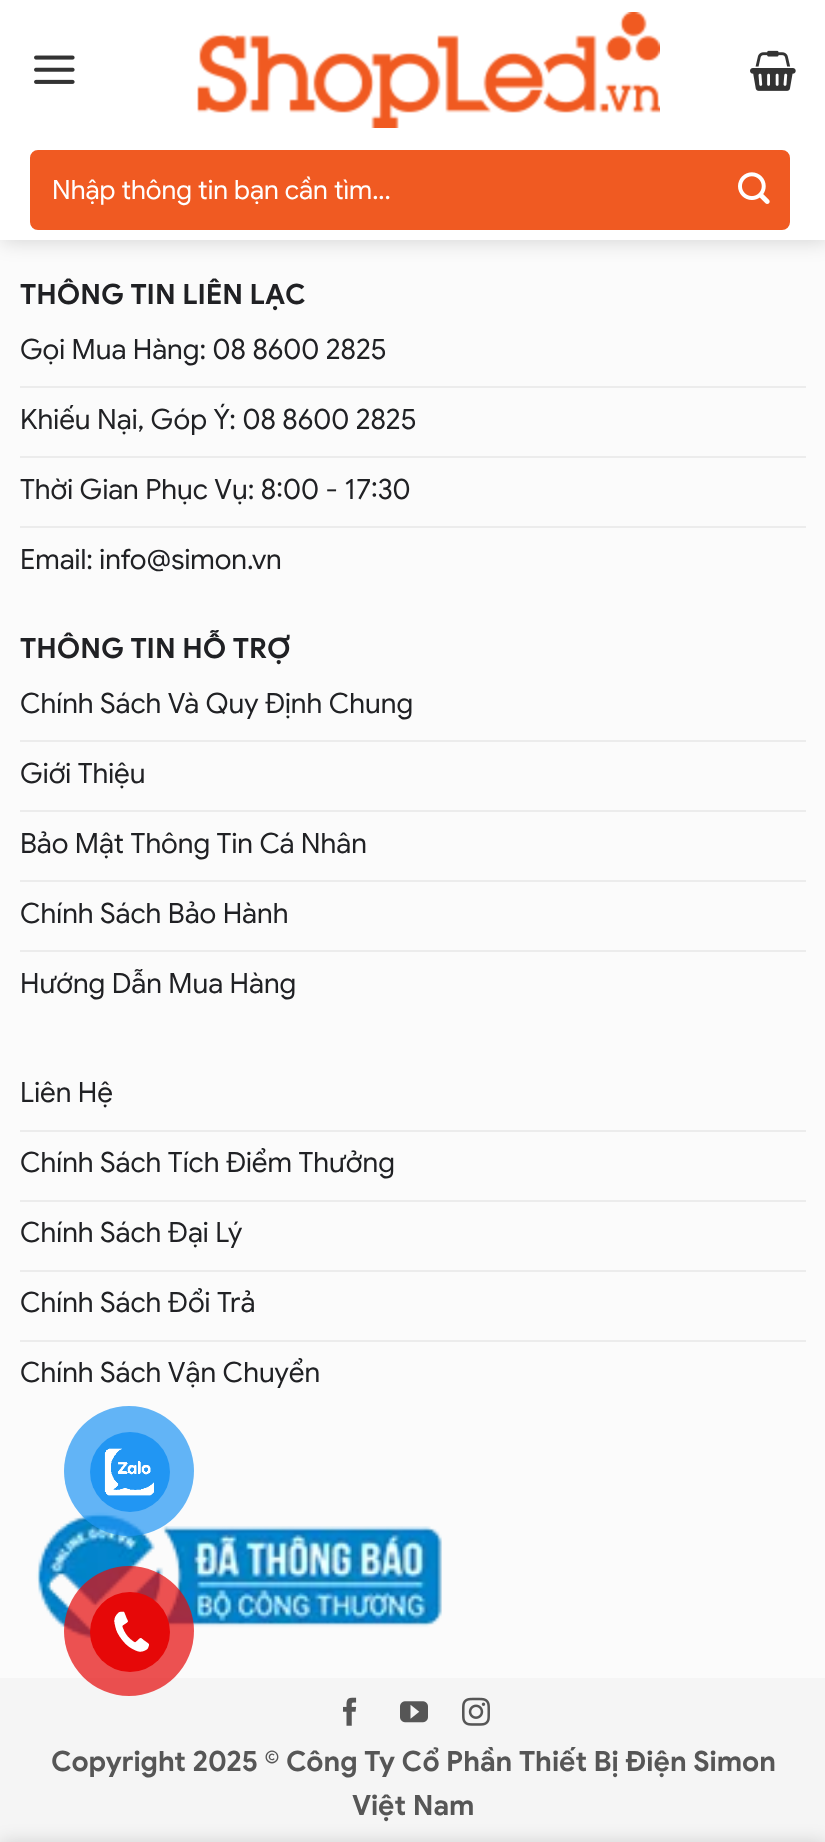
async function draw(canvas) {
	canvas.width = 825;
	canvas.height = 1842;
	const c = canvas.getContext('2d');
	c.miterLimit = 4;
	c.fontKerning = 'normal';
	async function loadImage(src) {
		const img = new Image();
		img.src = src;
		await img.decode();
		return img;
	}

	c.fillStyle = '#f5f5f5';
	c.fillRect(0, 0, 825, 1842);
	c.fillStyle = '#fbfbfb';
	c.fillRect(0, 240, 825, 1438);
	c.fillStyle = '#00000026';
	c.filter = 'blur(10px)';
	c.beginPath();
	c.rect(2, 2, 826, 240);
	c.fill();
	c.filter = 'none';
	c.fillStyle = '#fff';
	c.fillRect(0, 0, 825, 240);
	c.drawImage(await loadImage('img1.png'), 34, 55, 41, 29);
	c.drawImage(await loadImage('img2.png'), 197, 12, 463, 116);
	c.drawImage(await loadImage('img3.png'), 750, 50, 46, 41);
	c.fillStyle = '#f05a22';
	c.beginPath();
	c.roundRect(31, 151, 758, 78, 7);
	c.fill();
	c.strokeStyle = '#f05a22';
	c.lineWidth = 2;
	c.stroke();
	c.font = '26.4px Google Sans';
	c.fillStyle = '#fff';
	c.fillText('Nhập thông tin bạn cần tìm...', 52, 199);
	c.drawImage(await loadImage('img4.png'), 738, 172, 32, 32);
	c.font = 'bold 28px Google Sans';
	c.fillStyle = '#202124';
	c.fillText('THÔNG TIN LIÊN LẠC', 20, 304);
	c.fillStyle = '#ececec';
	c.fillRect(20, 386, 786, 2);
	c.font = '28px Google Sans';
	c.fillStyle = '#202124';
	c.fillText('Gọi Mua Hàng: 08 8600 2825', 20, 359);
	c.fillStyle = '#ececec';
	c.fillRect(20, 456, 786, 2);
	c.fillStyle = '#202124';
	c.fillText('Khiếu Nại, Góp Ý: 08 8600 2825', 20, 429);
	c.fillStyle = '#ececec';
	c.fillRect(20, 526, 786, 2);
	c.fillStyle = '#202124';
	c.fillText('Thời Gian Phục Vụ: 8:00 - 17:30', 20, 499);
	c.fillText('Email: info@simon.vn', 20, 569);
	c.font = 'bold 28px Google Sans';
	c.fillText('THÔNG TIN HỖ TRỢ', 20, 658);
	c.fillStyle = '#ececec';
	c.fillRect(20, 740, 786, 2);
	c.font = '28px Google Sans';
	c.fillStyle = '#202124';
	c.fillText('Chính Sách Và Quy Định Chung', 20, 713);
	c.fillStyle = '#ececec';
	c.fillRect(20, 810, 786, 2);
	c.fillStyle = '#202124';
	c.fillText('Giới Thiệu', 20, 783);
	c.fillStyle = '#ececec';
	c.fillRect(20, 880, 786, 2);
	c.fillStyle = '#202124';
	c.fillText('Bảo Mật Thông Tin Cá Nhân', 20, 853);
	c.fillStyle = '#ececec';
	c.fillRect(20, 950, 786, 2);
	c.fillStyle = '#202124';
	c.fillText('Chính Sách Bảo Hành', 20, 923);
	c.fillText('Hướng Dẫn Mua Hàng', 20, 993);
	c.fillStyle = '#ececec';
	c.fillRect(20, 1130, 786, 2);
	c.fillStyle = '#202124';
	c.fillText('Liên Hệ', 20, 1102);
	c.fillStyle = '#ececec';
	c.fillRect(20, 1200, 786, 2);
	c.fillStyle = '#202124';
	c.fillText('Chính Sách Tích Điểm Thưởng', 20, 1172);
	c.fillStyle = '#ececec';
	c.fillRect(20, 1270, 786, 2);
	c.fillStyle = '#202124';
	c.fillText('Chính Sách Đại Lý', 20, 1242);
	c.fillStyle = '#ececec';
	c.fillRect(20, 1340, 786, 2);
	c.fillStyle = '#202124';
	c.fillText('Chính Sách Đổi Trả', 20, 1312);
	c.fillText('Chính Sách Vận Chuyển', 20, 1382);
	c.drawImage(await loadImage('img5.png'), 36, 1512, 406, 127);
	c.drawImage(await loadImage('img6.png'), 343, 1697, 14, 29);
	c.drawImage(await loadImage('img7.png'), 400, 1701, 28, 22);
	c.drawImage(await loadImage('img8.png'), 462, 1697, 28, 29);
	c.font = 'bold 28px Google Sans';
	c.fillStyle = '#565656';
	c.fillText('Copyright 2025 © Công Ty Cổ Phần Thiết Bị Điện Simon', 51, 1771);
	c.fillText('Việt Nam', 352, 1815);
	c.fillStyle = '#2196f3b3';
	c.beginPath();
	c.arc(129, 1471, 65, 0, 2 * Math.PI);
	c.fill();
	c.fillStyle = '#2196f3';
	c.beginPath();
	c.arc(130, 1472, 40, 0, 2 * Math.PI);
	c.fill();
	c.drawImage(await loadImage('img9.png'), 104, 1448, 50, 48);
	c.fillStyle = '#e60808b3';
	c.beginPath();
	c.arc(129, 1631, 65, 0, 2 * Math.PI);
	c.fill();
	c.fillStyle = '#e60808';
	c.beginPath();
	c.arc(130, 1632, 40, 0, 2 * Math.PI);
	c.fill();
	c.drawImage(await loadImage('img10.png'), 114, 1611, 35, 41);
	c.fillStyle = '#00000024';
	c.filter = 'blur(9px)';
	c.beginPath();
	c.rect(0, 1842, 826, 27);
	c.fill();
	c.filter = 'none';
}

draw(document.querySelector('canvas'));
